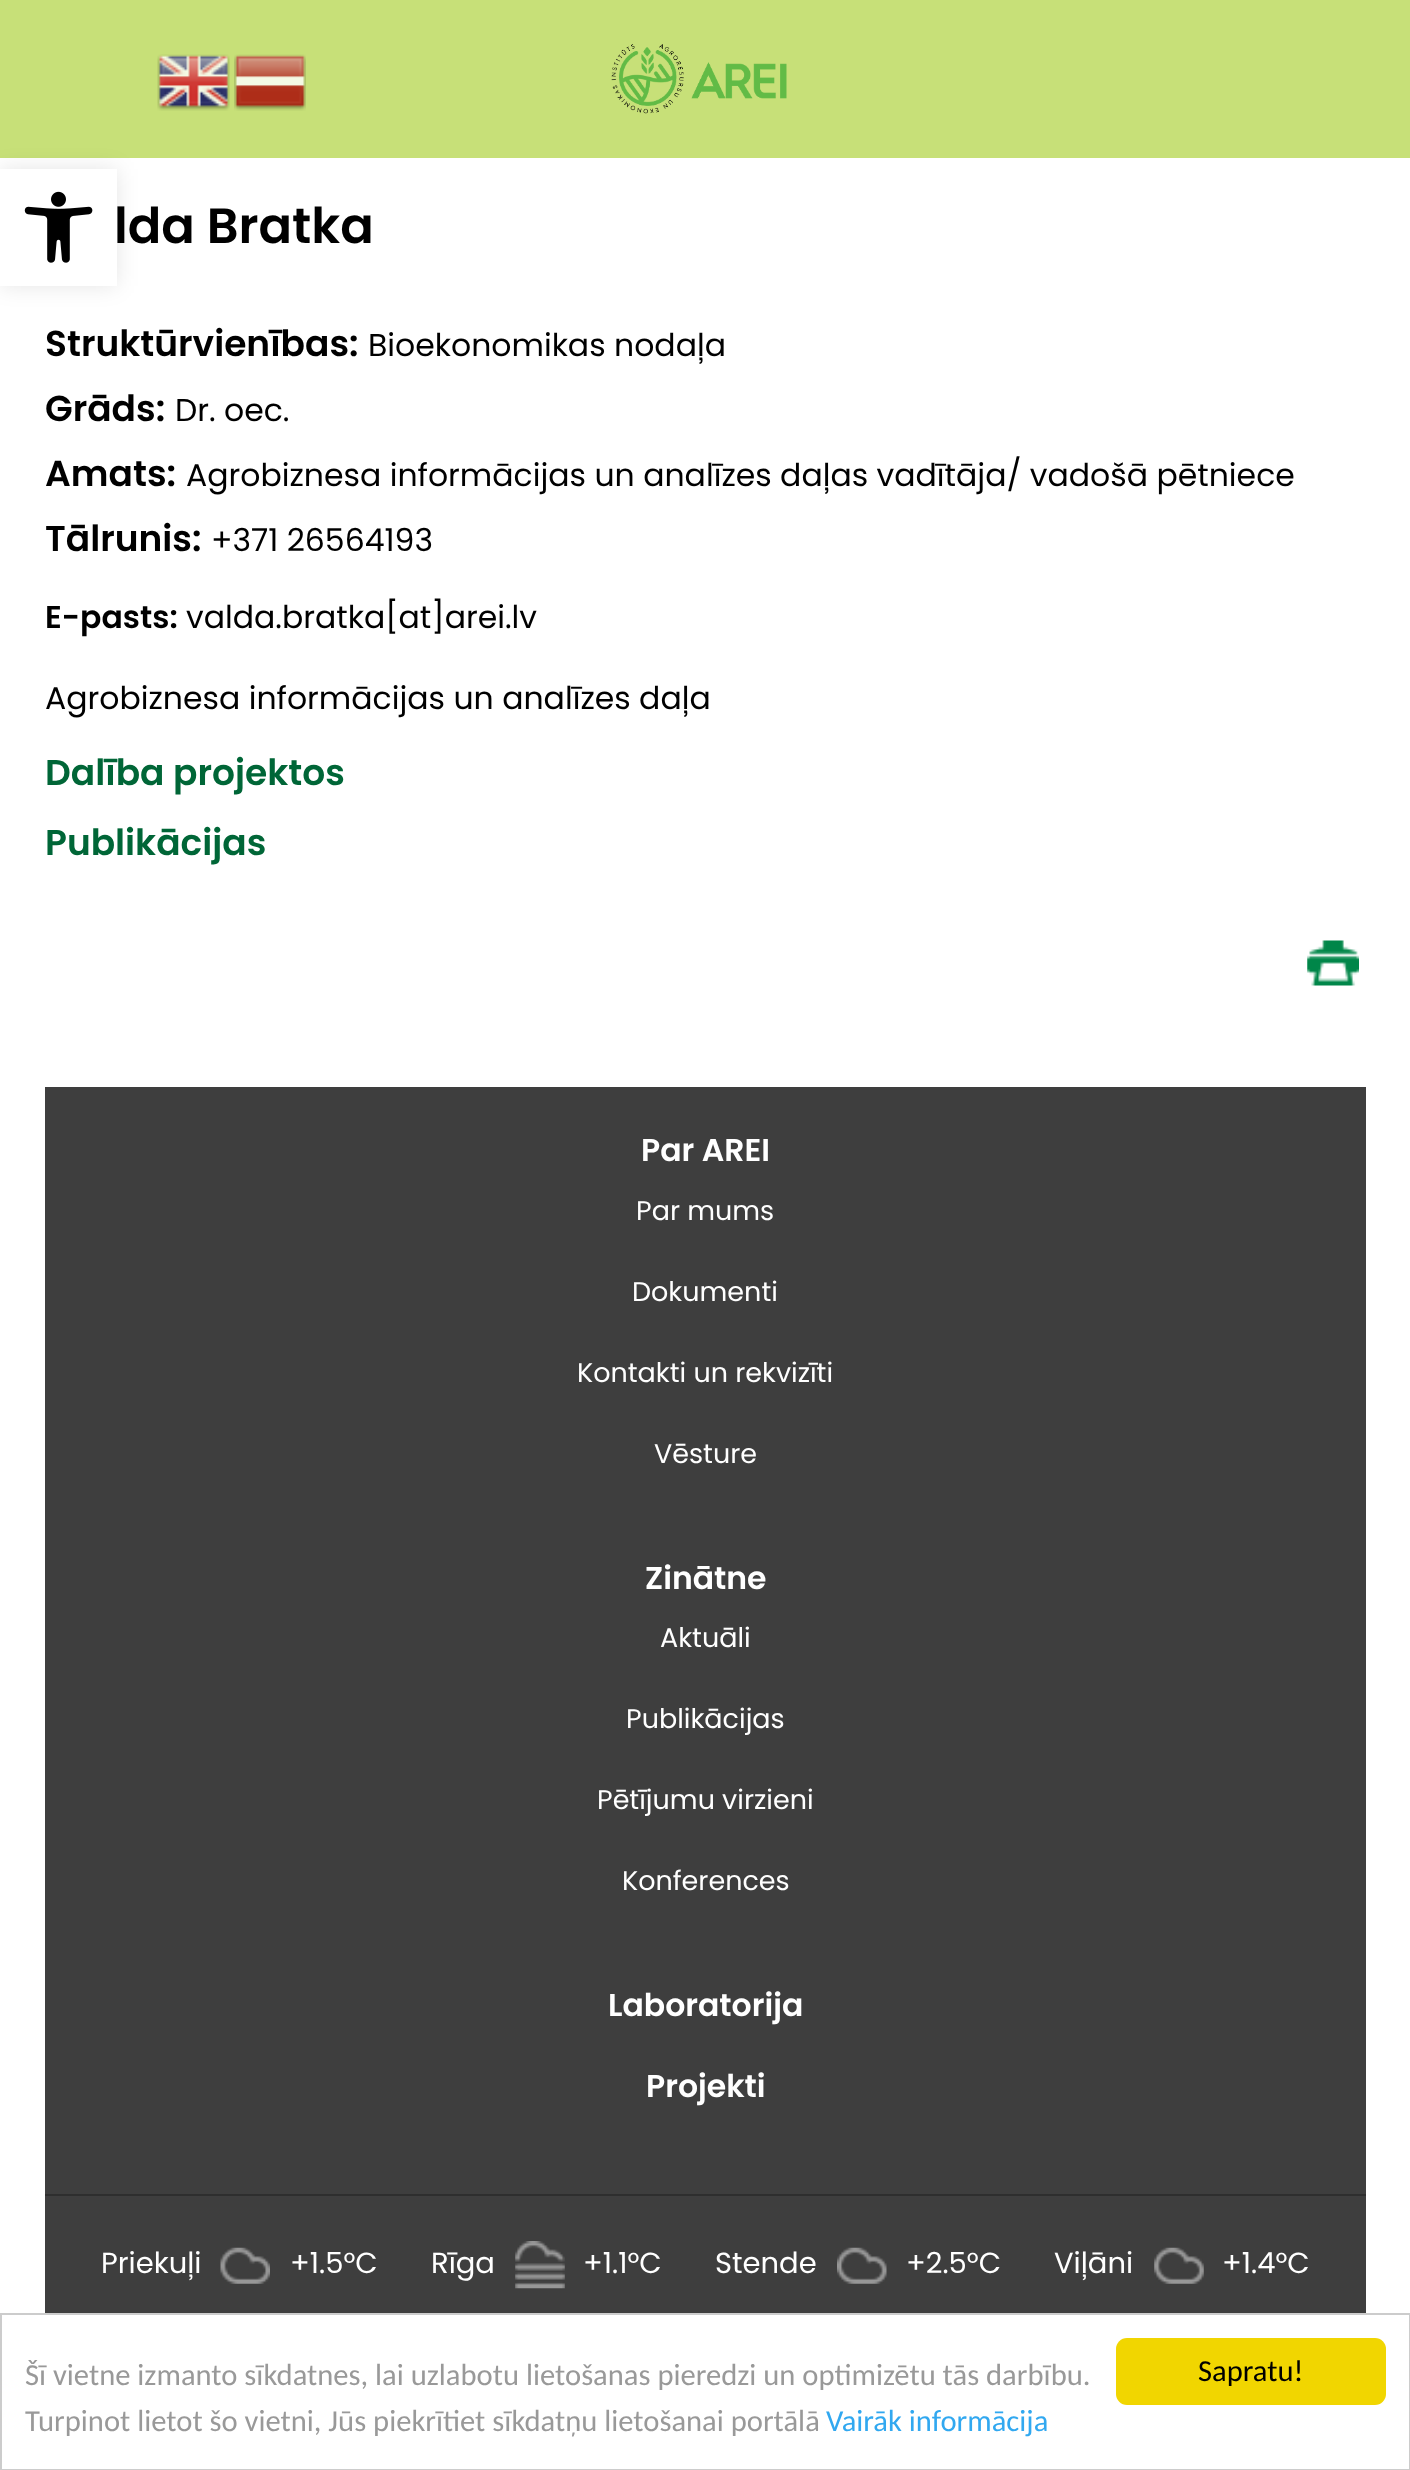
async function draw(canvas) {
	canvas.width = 1410;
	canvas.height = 2470;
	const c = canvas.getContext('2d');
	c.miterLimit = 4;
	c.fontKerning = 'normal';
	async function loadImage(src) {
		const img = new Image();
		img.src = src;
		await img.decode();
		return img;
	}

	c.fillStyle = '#fff';
	c.fillRect(0, 0, 1410, 2470);
	c.fillStyle = '#c7e078';
	c.fillRect(0, 0, 1410, 158);
	c.fillStyle = '#0000001a';
	c.filter = 'blur(11px)';
	c.beginPath();
	c.rect(0, 169, 117, 117);
	c.fill();
	c.filter = 'none';
	c.fillStyle = '#fff';
	c.fillRect(0, 169, 117, 117);
	c.drawImage(await loadImage('img1.png'), 24, 191, 69, 72);
	c.drawImage(await loadImage('img2.png'), 157, 54, 73, 57);
	c.drawImage(await loadImage('img3.png'), 234, 54, 72, 57);
	c.drawImage(await loadImage('img4.png'), 611, 44, 176, 70);
	c.font = '600 49.5px Poppins';
	c.fillStyle = '#000';
	c.fillText('lda Bratka', 114, 243);
	c.font = '600 36px Poppins';
	c.fillText('Struktūrvienības:', 45, 356);
	c.font = '31.5px Poppins';
	c.fillText('Bioekonomikas nodaļa', 368, 356);
	c.font = '600 36px Poppins';
	c.fillText('Grāds:', 45, 421);
	c.font = '31.5px Poppins';
	c.fillText('Dr. oec.', 175, 421);
	c.font = '600 36px Poppins';
	c.fillText('Amats:', 45, 486);
	c.font = '31.5px Poppins';
	c.fillText('Agrobiznesa informācijas un analīzes daļas vadītāja/ vadošā pētniece', 186, 486);
	c.font = '600 36px Poppins';
	c.fillText('Tālrunis:', 45, 551);
	c.font = '31.5px Poppins';
	c.fillText('+371 26564193', 211, 551);
	c.font = '600 31.5px Poppins';
	c.fillText('E-pasts:', 45, 628);
	c.font = '31.5px Poppins';
	c.fillText('valda.bratka[at]arei.lv', 186, 628);
	c.fillText('Agrobiznesa informācijas un analīzes daļa', 45, 709);
	c.font = '600 36px Poppins';
	c.fillStyle = '#006637';
	c.fillText('Dalība projektos', 45, 785);
	c.fillText('Publikācijas', 45, 855);
	c.drawImage(await loadImage('img5.png'), 1307, 940, 52, 46);
	c.fillStyle = '#3e3e3e';
	c.fillRect(45, 1087, 1321, 1226);
	c.font = '600 31.5px Poppins';
	c.fillStyle = '#fff';
	c.fillText('Par AREI', 641, 1161);
	c.font = '27px Poppins';
	for (const [text, x, y] of [
		['Par mums', 636, 1220],
		['Dokumenti', 632, 1301],
		['Kontakti un rekvizīti', 577, 1382],
		['Vēsture', 654, 1463],
	]) {
		c.fillText(text, x, y);
	}
	c.font = '600 31.5px Poppins';
	c.fillText('Zinātne', 645, 1589);
	c.font = '27px Poppins';
	for (const [text, x, y] of [
		['Aktuāli', 660, 1647],
		['Publikācijas', 626, 1728],
		['Pētījumu virzieni', 597, 1809],
		['Konferences', 622, 1890],
	]) {
		c.fillText(text, x, y);
	}
	c.font = '600 31.5px Poppins';
	c.fillText('Laboratorija', 608, 2016);
	c.fillText('Projekti', 646, 2097);
	c.fillStyle = '#2e2e2e';
	c.fillRect(45, 2194, 1321, 2);
	c.font = '29px Poppins';
	c.fillStyle = '#fff';
	c.fillText('Priekuļi', 101, 2273);
	c.drawImage(await loadImage('img6.png'), 220, 2247, 50, 37);
	c.fillText('+1.5°C', 290, 2273);
	c.fillText('Rīga', 431, 2273);
	c.drawImage(await loadImage('img7.png'), 515, 2241, 50, 48);
	c.fillText('+1.1°C', 583, 2273);
	c.fillText('Stende', 715, 2273);
	c.drawImage(await loadImage('img8.png'), 837, 2247, 50, 37);
	c.fillText('+2.5°C', 906, 2273);
	c.fillText('Viļāni', 1054, 2273);
	c.drawImage(await loadImage('img9.png'), 1154, 2247, 50, 37);
	c.fillText('+1.4°C', 1222, 2273);
	c.strokeStyle = '#ccc';
	c.lineWidth = 2;
	c.strokeRect(1, 2314, 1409, 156);
	c.font = '30.6px Carlito';
	c.fillStyle = '#999';
	c.fillText('Šī vietne izmanto sīkdatnes, lai uzlabotu lietošanas pieredzi un optimizētu tās darbību.', 25, 2385);
	c.fillText('Turpinot lietot šo vietni, Jūs piekrītiet sīkdatņu lietošanai portālā', 25, 2431);
	c.fillStyle = '#31a8f0';
	c.fillText('Vairāk informācija', 826, 2431);
	c.fillStyle = '#f1d600';
	c.beginPath();
	c.roundRect(1116, 2338, 270, 67, 11);
	c.fill();
	c.fillStyle = '#000';
	c.fillText('Sapratu!', 1198, 2381);
}

draw(document.querySelector('canvas'));
